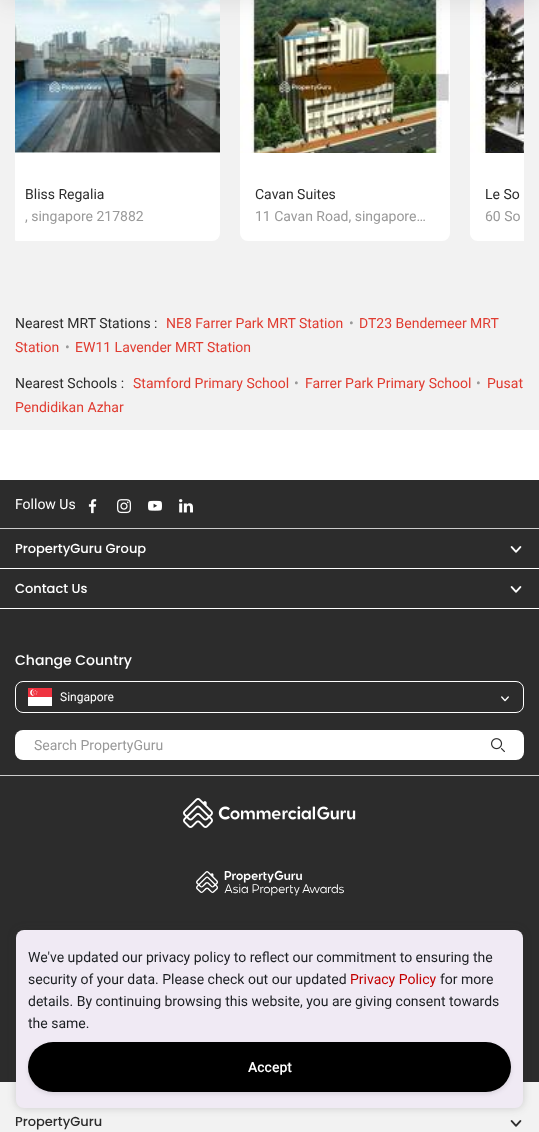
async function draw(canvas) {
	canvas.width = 539;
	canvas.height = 1132;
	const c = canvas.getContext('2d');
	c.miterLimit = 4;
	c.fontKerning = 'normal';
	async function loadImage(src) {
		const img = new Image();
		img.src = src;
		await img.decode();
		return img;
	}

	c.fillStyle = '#fff';
	c.fillRect(0, 0, 539, 1132);
	c.fillStyle = '#f2f2f2';
	c.fillRect(0, 0, 539, 430);
	c.save();
	c.beginPath();
	c.rect(15, 0, 509, 281);
	c.clip();
	c.fillStyle = '#fff';
	c.beginPath();
	c.roundRect(10, -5, 210, 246, 8);
	c.fill();
	c.restore();
	c.drawImage(await loadImage('img1.png'), 15, 0, 205, 153);
	c.font = '14px Roboto';
	c.fillStyle = '#2c2c2c';
	c.fillText('Bliss Regalia', 25, 199);
	c.fillStyle = '#999';
	c.fillText(', singapore 217882', 25, 221);
	c.fillStyle = '#fff';
	c.beginPath();
	c.roundRect(240, -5, 210, 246, 8);
	c.fill();
	c.drawImage(await loadImage('img2.png'), 240, 0, 210, 153);
	c.fillStyle = '#2c2c2c';
	c.fillText('Cavan Suites', 255, 199);
	c.fillStyle = '#999';
	c.fillText('11 Cavan Road, singapore…', 255, 221);
	c.fillStyle = '#fff';
	c.beginPath();
	c.moveTo(478, -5);
	c.lineTo(524, -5);
	c.lineTo(524, 241);
	c.lineTo(478, 241);
	c.bezierCurveTo(473.5, 241, 470, 237.5, 470, 233);
	c.lineTo(470, 3);
	c.bezierCurveTo(470, -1.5, 473.5, -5, 478, -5);
	c.closePath();
	c.fill();
	c.drawImage(await loadImage('img3.png'), 470, 0, 54, 153);
	c.fillStyle = '#2c2c2c';
	c.fillText('Le So', 485, 199);
	c.fillStyle = '#999';
	c.fillText('60 So', 485, 221);
	c.fillStyle = '#2c2c2c';
	c.fillText('Nearest MRT Stations :', 15, 328);
	c.fillStyle = '#e03c31';
	c.fillText('NE8 Farrer Park MRT Station', 166, 328);
	c.fillStyle = '#999';
	c.fillText('•', 349, 328);
	c.fillStyle = '#e03c31';
	c.fillText('DT23 Bendemeer MRT', 359, 328);
	c.fillText('Station', 15, 352);
	c.fillStyle = '#999';
	c.fillText('•', 65, 352);
	c.fillStyle = '#e03c31';
	c.fillText('EW11 Lavender MRT Station', 75, 352);
	c.fillStyle = '#2c2c2c';
	c.fillText('Nearest Schools :', 15, 388);
	c.fillStyle = '#e03c31';
	c.fillText('Stamford Primary School', 133, 388);
	c.fillStyle = '#999';
	c.fillText('•', 294, 388);
	c.fillStyle = '#e03c31';
	c.fillText('Farrer Park Primary School', 305, 388);
	c.fillStyle = '#999';
	c.fillText('•', 476, 388);
	c.fillStyle = '#e03c31';
	c.fillText('Pusat', 487, 388);
	c.fillText('Pendidikan Azhar', 15, 412);
	c.fillStyle = '#2c2c2c';
	c.fillRect(0, 480, 539, 48);
	c.fillStyle = '#fff';
	c.fillText('Follow Us', 15, 509);
	c.drawImage(await loadImage('img4.png'), 88, 499, 9, 15);
	c.drawImage(await loadImage('img5.png'), 117, 499, 14, 15);
	c.drawImage(await loadImage('img6.png'), 148, 500, 14, 11);
	c.drawImage(await loadImage('img7.png'), 179, 499, 14, 14);
	for (const [x, y, w, h, color] of [
		[0, 529, 539, 246, '#2c2c2c'],
		[0, 528, 539, 1, '#ccc'],
		[0, 568, 539, 1, '#fff'],
	]) {
		c.fillStyle = color;
		c.fillRect(x, y, w, h);
	}
	c.font = '500 13px Poppins';
	c.fillText('PropertyGuru Group', 15, 553);
	c.drawImage(await loadImage('img8.png'), 510, 546, 12, 7);
	c.fillRect(0, 608, 539, 1);
	c.fillText('Contact Us', 15, 593);
	c.drawImage(await loadImage('img8.png'), 510, 586, 12, 7);
	c.font = '500 14px Poppins';
	c.fillText('Change Country', 15, 665);
	c.beginPath();
	c.roundRect(15.5, 681.5, 508, 31, 7.5);
	c.strokeStyle = '#fff';
	c.stroke();
	c.drawImage(await loadImage('img9.png'), 28, 688, 24, 18);
	c.font = '12px Roboto';
	c.fillText('Singapore', 60, 701);
	c.drawImage(await loadImage('img10.png'), 501, 696, 8, 6);
	c.beginPath();
	c.roundRect(15, 730, 509, 30, 8);
	c.fill();
	c.font = '14px Roboto';
	c.fillStyle = '#999';
	c.fillText('Search PropertyGuru', 34, 750);
	c.drawImage(await loadImage('img11.png'), 491, 738, 14, 15);
	c.fillStyle = '#2c2c2c';
	c.fillRect(0, 776, 539, 306);
	c.fillStyle = '#ccc';
	c.fillRect(0, 775, 539, 1);
	c.drawImage(await loadImage('img12.png'), 183, 798, 173, 30);
	c.drawImage(await loadImage('img13.png'), 196, 870, 148, 26);
	c.fillStyle = '#f2f2f2';
	c.fillRect(0, 1082, 539, 50);
	c.font = '500 13px Poppins';
	c.fillStyle = '#2c2c2c';
	c.fillText('PropertyGuru', 15, 1126);
	c.drawImage(await loadImage('img14.png'), 510, 1120, 12, 7);
	c.fillStyle = '#2c2c2c1a';
	c.filter = 'blur(12px)';
	c.beginPath();
	c.rect(0, -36, 539, 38);
	c.fill();
	c.filter = 'none';
	c.fillStyle = '#2c2c2c33';
	c.filter = 'blur(4px)';
	c.beginPath();
	c.roundRect(16, 930, 507, 178, 8);
	c.fill();
	c.filter = 'none';
	c.fillStyle = '#f0eaf4';
	c.beginPath();
	c.roundRect(16, 930, 507, 178, 8);
	c.fill();
	c.font = '14px Roboto';
	c.fillStyle = '#1c1f22';
	c.fillText('We\'ve updated our privacy policy to reflect our commitment to ensuring the', 28, 962);
	c.fillText('security of your data. Please check out our updated', 28, 984);
	c.fillStyle = '#c20000';
	c.fillText('Privacy Policy', 350, 984);
	c.fillStyle = '#1c1f22';
	for (const [text, x, y] of [
		['for more', 440, 984],
		['details. By continuing browsing this website, you are giving consent towards', 28, 1006],
		['the same.', 28, 1028],
	]) {
		c.fillText(text, x, y);
	}
	c.fillStyle = '#282c2e1f';
	c.filter = 'blur(2px)';
	c.beginPath();
	c.roundRect(28, 1044, 483, 50, 25);
	c.fill();
	c.filter = 'none';
	c.fillStyle = '#000';
	c.beginPath();
	c.roundRect(28, 1042, 483, 50, 25);
	c.fill();
	c.font = '500 14px Roboto';
	c.fillStyle = '#fff';
	c.fillText('Accept', 248, 1072);
}

draw(document.querySelector('canvas'));
